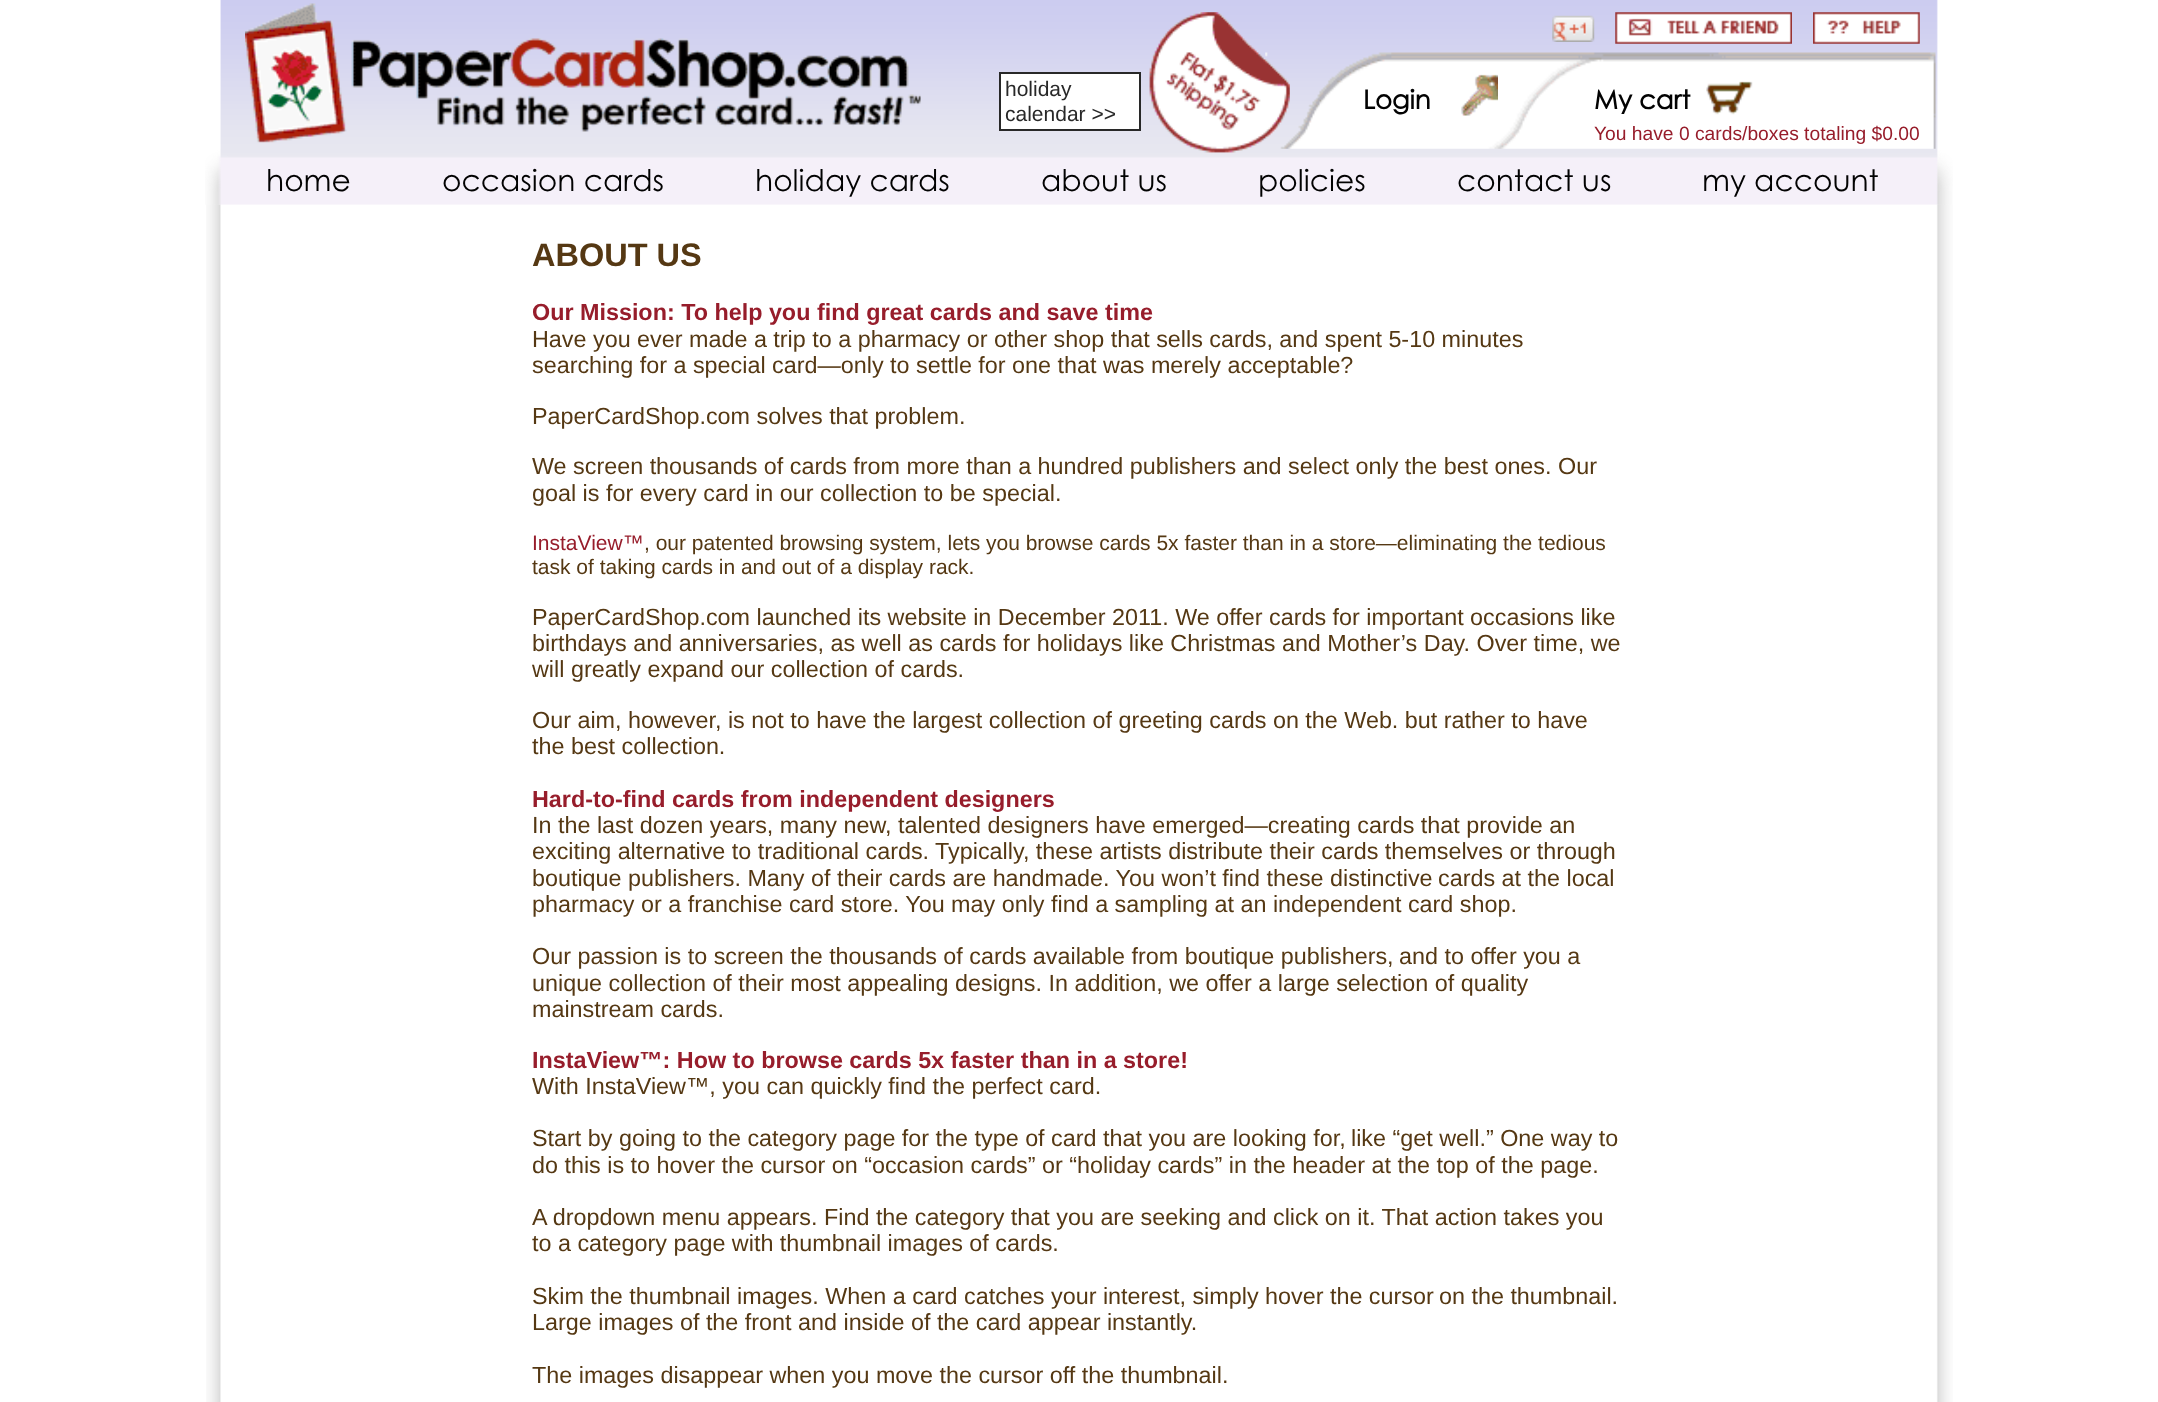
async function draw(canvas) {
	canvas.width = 2158;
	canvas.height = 1402;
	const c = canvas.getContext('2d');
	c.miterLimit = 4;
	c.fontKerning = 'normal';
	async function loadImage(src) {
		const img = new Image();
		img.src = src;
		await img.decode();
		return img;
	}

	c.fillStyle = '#fff';
	c.fillRect(0, 0, 2158, 1402);
	c.drawImage(await loadImage('img1.png'), 205, 0, 1748, 205);
	c.drawImage(await loadImage('img2.png'), 245, 3, 676, 140);
	c.drawImage(await loadImage('img7.png'), 1265, 52, 671, 97);
	c.drawImage(await loadImage('img3.png'), 1149, 12, 141, 141);
	c.drawImage(await loadImage('img4.png'), 1552, 15, 43, 27);
	c.drawImage(await loadImage('img5.png'), 1615, 12, 177, 32);
	c.drawImage(await loadImage('img6.png'), 1813, 12, 107, 32);
	c.beginPath();
	c.rect(1000, 73, 140, 57);
	c.fill();
	c.strokeStyle = '#282828';
	c.lineWidth = 2;
	c.stroke();
	c.font = '21px Liberation Sans';
	c.fillStyle = '#282828';
	c.fillText('holiday', 1005, 96);
	c.fillText('calendar >>', 1005, 121);
	c.font = 'bold 26px Century Gothic';
	c.fillStyle = '#020202';
	c.fillText('Login', 1363, 109);
	c.drawImage(await loadImage('img8.png'), 1461, 74, 37, 42);
	c.drawImage(await loadImage('img9.png'), 1706, 81, 47, 34);
	c.fillText('My cart', 1594, 109);
	c.font = '19.25px Liberation Sans';
	c.fillStyle = '#971d2b';
	c.fillText('You have 0 cards/boxes totaling $0.00', 1594, 140);
	c.font = '29.75px Century Gothic';
	c.fillStyle = '#020202';
	for (const [text, x, y] of [
		['home', 266, 191],
		['occasion cards', 442, 191],
		['holiday cards', 755, 191],
		['about us', 1041, 191],
		['policies', 1258, 191],
		['contact us', 1457, 191],
		['my account', 1702, 191],
	]) {
		c.fillText(text, x, y);
	}
	c.drawImage(await loadImage('img10.png'), 206, 204, 1747, 1198);
	c.font = 'bold 32.5px Liberation Sans';
	c.fillStyle = '#553813';
	c.fillText('ABOUT US', 532, 266);
	c.font = 'bold 23.35px Liberation Sans';
	c.fillStyle = '#971d2b';
	c.fillText('Our Mission: To help you find great cards and save time', 532, 320);
	c.font = '23.35px Liberation Sans';
	c.fillStyle = '#553813';
	for (const [text, x, y] of [
		['Have you ever made a trip to a pharmacy or other shop that sells cards, and spent 5-10 minutes', 532, 347],
		['searching for a special card—only to settle for one that was merely acceptable?', 532, 373],
		['PaperCardShop.com solves that problem.', 532, 424],
		['We screen thousands of cards from more than a hundred publishers and select only the best ones. Our', 532, 474],
		['goal is for every card in our collection to be special.', 532, 501],
	]) {
		c.fillText(text, x, y);
	}
	c.font = '21px Liberation Sans';
	c.fillStyle = '#971d2b';
	c.fillText('InstaView™', 532, 550);
	c.fillStyle = '#553813';
	c.fillText(', our patented browsing system, lets you browse cards 5x faster than in a store—eliminating the tedious', 644, 550);
	c.fillText('task of taking cards in and out of a display rack.', 532, 574);
	c.font = '23.35px Liberation Sans';
	for (const [text, x, y] of [
		['PaperCardShop.com launched its website in December 2011. We offer cards for important occasions like', 532, 625],
		['birthdays and anniversaries, as well as cards for holidays like Christmas and Mother’s Day. Over time, we', 532, 651],
		['will greatly expand our collection of cards.', 532, 677],
		['Our aim, however, is not to have the largest collection of greeting cards on the Web. but rather to have', 532, 728],
		['the best collection.', 532, 754],
	]) {
		c.fillText(text, x, y);
	}
	c.font = 'bold 23.35px Liberation Sans';
	c.fillStyle = '#971d2b';
	c.fillText('Hard-to-find cards from independent designers', 532, 807);
	c.font = '23.35px Liberation Sans';
	c.fillStyle = '#553813';
	for (const [text, x, y] of [
		['In the last dozen years, many new, talented designers have emerged—creating cards that provide an', 532, 833],
		['exciting alternative to traditional cards. Typically, these artists distribute their cards themselves or through', 532, 859],
		['boutique publishers. Many of their cards are handmade. You won’t find these distinctive', 532, 886],
		['cards at the local', 1438, 886],
		['pharmacy or a franchise card store. You may only find a sampling at an independent card shop.', 532, 912],
		['Our passion is to screen the thousands of cards available from boutique publishers,', 532, 964],
		['and to offer you a', 1399, 964],
		['unique collection of their most appealing designs. In addition, we offer a large selection of quality', 532, 991],
		['mainstream cards.', 532, 1017],
	]) {
		c.fillText(text, x, y);
	}
	c.font = 'bold 23.35px Liberation Sans';
	c.fillStyle = '#971d2b';
	c.fillText('InstaView™: How to browse cards 5x faster than in a store!', 532, 1068);
	c.font = '23.35px Liberation Sans';
	c.fillStyle = '#553813';
	for (const [text, x, y] of [
		['With InstaView™, you can quickly find the perfect card.', 532, 1094],
		['Start by going to the category page for the type of card that you are looking for,', 532, 1146],
		['like “get well.” One way to', 1351, 1146],
		['do this is to hover the cursor on “occasion cards” or “holiday cards” in the header at the top of the page.', 532, 1173],
		['A dropdown menu appears. Find the category that you are seeking and click on it. That action takes you', 532, 1225],
		['to a category page with thumbnail images of cards.', 532, 1251],
		['Skim the thumbnail images. When a card catches your interest, simply hover the cursor', 532, 1304],
		['on the thumbnail.', 1439, 1304],
		['Large images of the front and inside of the card appear instantly.', 532, 1330],
		['The images disappear when you move the cursor off the thumbnail.', 532, 1383],
	]) {
		c.fillText(text, x, y);
	}
}

draw(document.querySelector('canvas'));
